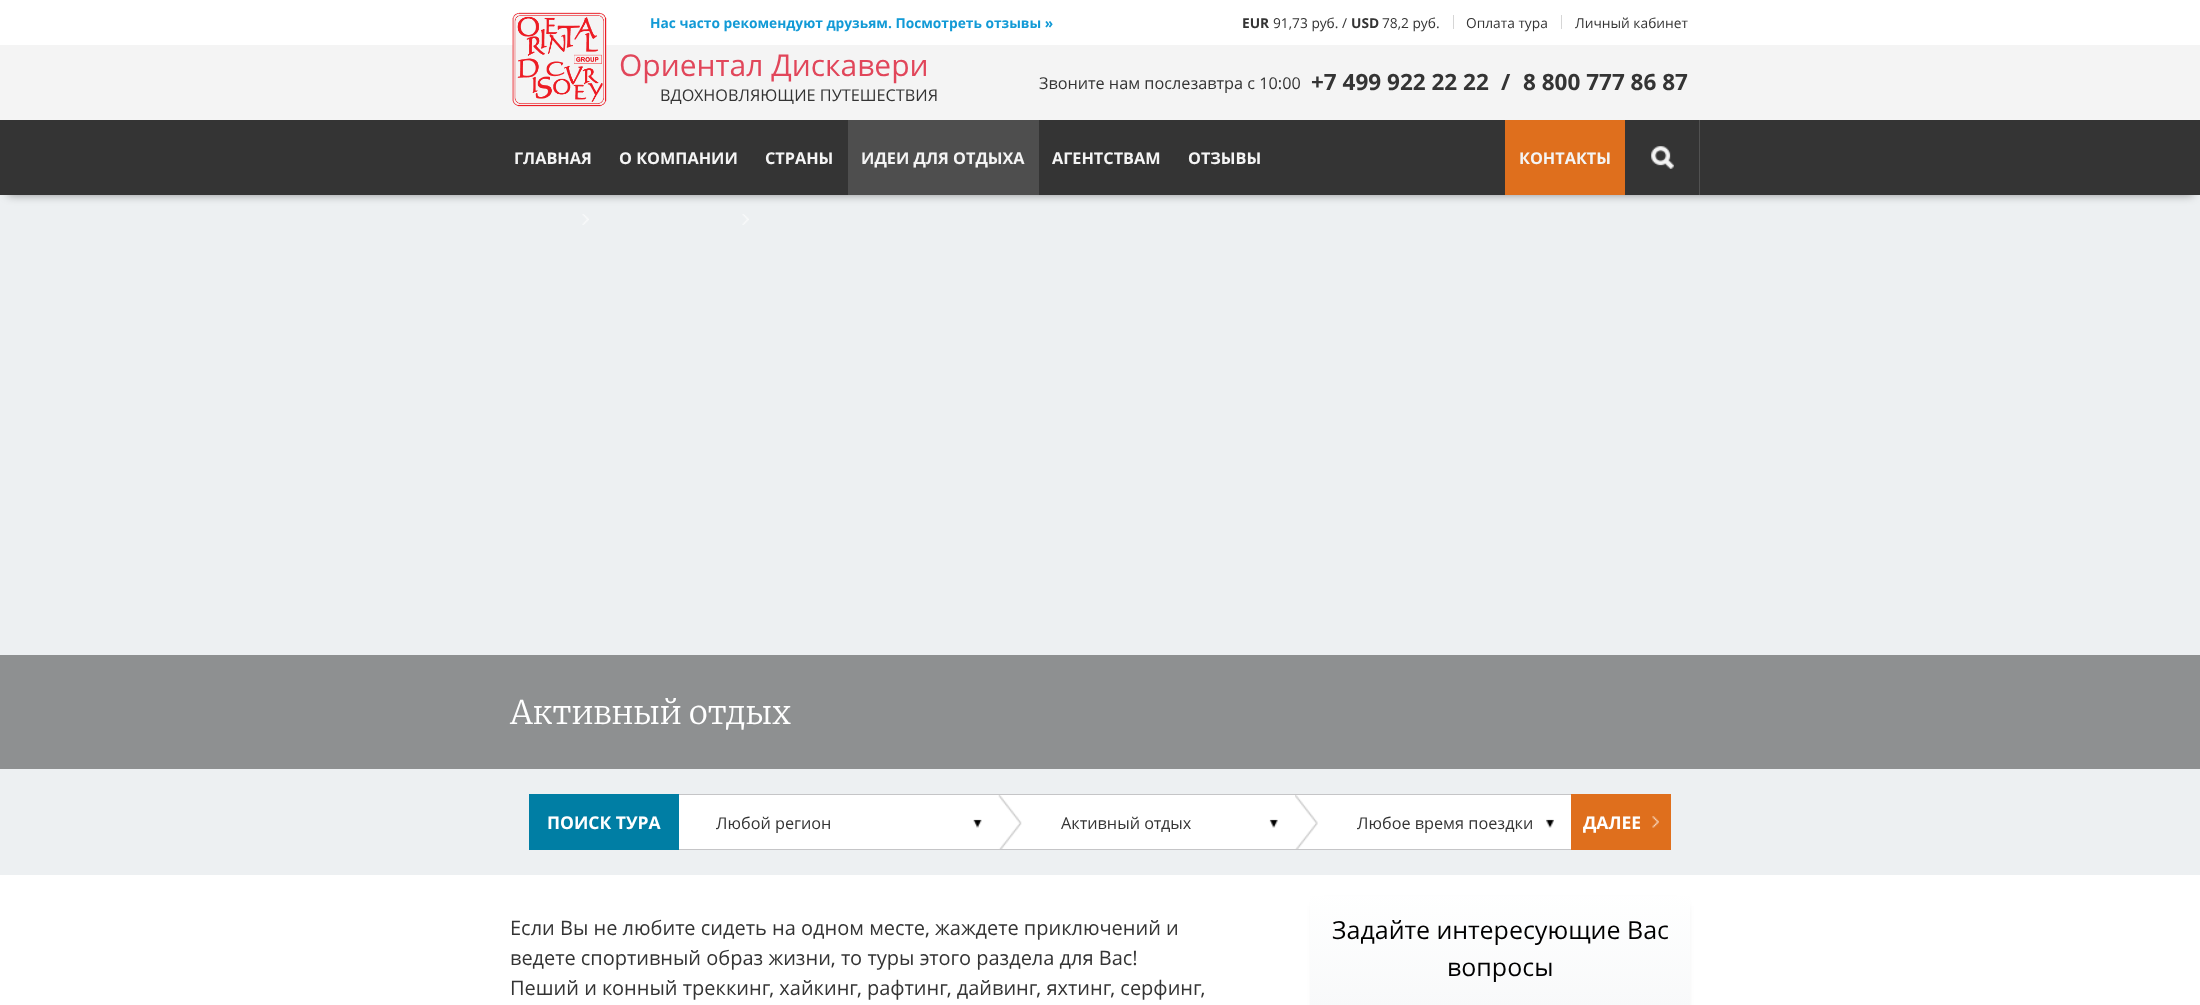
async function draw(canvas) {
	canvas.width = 2200;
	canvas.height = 1005;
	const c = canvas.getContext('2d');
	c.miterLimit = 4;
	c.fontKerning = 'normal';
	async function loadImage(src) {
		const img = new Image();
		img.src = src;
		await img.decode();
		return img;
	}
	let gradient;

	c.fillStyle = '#edf0f2';
	c.fillRect(0, 0, 2200, 1005);
	c.fillStyle = '#fff';
	c.fillRect(0, 0, 2200, 45);
	c.fillStyle = '#f4f4f4';
	c.fillRect(0, 45, 2200, 75);
	c.drawImage(await loadImage('img1.png'), 512, 12, 95, 95);
	c.font = 'bold 13.75px Open Sans';
	c.fillStyle = '#129ad6';
	c.fillText('Нас часто рекомендуют друзьям. Посмотреть отзывы »', 650, 28);
	c.fillStyle = '#d6d6d6';
	c.fillRect(1453, 15, 1, 14);
	c.fillStyle = '#343434';
	c.fillText('EUR', 1242, 28);
	c.font = '13.75px Open Sans';
	c.fillText('91,73 руб. /', 1273, 28);
	c.font = 'bold 13.75px Open Sans';
	c.fillText('USD', 1351, 28);
	c.font = '13.75px Open Sans';
	c.fillText('78,2 руб.', 1382, 28);
	c.fillStyle = '#d6d6d6';
	c.fillRect(1561, 15, 1, 14);
	c.fillStyle = '#343434';
	c.fillText('Оплата тура', 1466, 28);
	c.fillText('Личный кабинет', 1575, 28);
	c.font = '30px Open Sans';
	c.fillStyle = '#e1465a';
	c.fillText('Ориентал Дискавери', 619, 76);
	c.font = '16.25px Open Sans';
	c.fillStyle = '#343434';
	c.fillText('Звоните нам послезавтра с 10:00', 1039, 89);
	c.font = 'bold 22.5px Open Sans';
	for (const [text, x, y] of [
		['+7 499 922 22 22', 1311, 90],
		['/', 1501, 90],
		['8 800 777 86 87', 1523, 90],
	]) {
		c.fillText(text, x, y);
	}
	c.font = '16.25px Open Sans';
	c.fillText('ВДОХНОВЛЯЮЩИЕ ПУТЕШЕСТВИЯ', 660, 101);
	c.fillStyle = '#00000066';
	c.filter = 'blur(5px)';
	c.beginPath();
	c.rect(8, 135, 2185, 60);
	c.fill();
	c.filter = 'none';
	c.fillStyle = '#343434';
	c.fillRect(0, 120, 2200, 75);
	c.font = 'bold 16.25px Open Sans';
	c.fillStyle = '#f4f4f4';
	for (const [text, x, y] of [
		['ГЛАВНАЯ', 514, 164],
		['О КОМПАНИИ', 619, 164],
		['СТРАНЫ', 765, 164],
	]) {
		c.fillText(text, x, y);
	}
	c.fillStyle = '#4e4e4e';
	c.fillRect(848, 120, 191, 75);
	c.fillStyle = '#f4f4f4';
	for (const [text, x, y] of [
		['ИДЕИ ДЛЯ ОТДЫХА', 861, 164],
		['АГЕНТСТВАМ', 1052, 164],
		['ОТЗЫВЫ', 1188, 164],
	]) {
		c.fillText(text, x, y);
	}
	c.fillStyle = '#df6f1d';
	c.fillRect(1505, 120, 120, 75);
	c.fillStyle = '#f4f4f4';
	c.fillText('КОНТАКТЫ', 1519, 164);
	c.drawImage(await loadImage('img2.png'), 1651, 146, 23, 23);
	c.fillStyle = '#515151';
	c.fillRect(1699, 120, 1, 75);
	c.drawImage(await loadImage('img3.png'), 582, 214, 7, 11);
	c.drawImage(await loadImage('img4.png'), 742, 214, 7, 11);
	c.fillStyle = '#8e9091';
	c.fillRect(0, 655, 2200, 114);
	c.font = '300 32.5px Merriweather';
	c.fillStyle = '#fff';
	c.fillText('Активный отдых', 510, 724);
	c.fillRect(679, 795, 892, 54);
	c.fillStyle = '#007ea4';
	c.fillRect(529, 794, 150, 56);
	c.font = 'bold 17.5px Open Sans';
	c.fillStyle = '#fff';
	c.fillText('ПОИСК ТУРА', 547, 829);
	c.fillStyle = '#c5c5c7';
	c.fillRect(679, 794, 892, 1);
	c.fillRect(679, 849, 892, 1);
	c.drawImage(await loadImage('img5.png'), 973, 819, 9, 9);
	c.font = '16.25px Open Sans';
	c.fillStyle = '#343434';
	c.fillText('Любой регион', 716, 829);
	c.drawImage(await loadImage('img6.png'), 998, 795, 24, 54);
	c.drawImage(await loadImage('img7.png'), 1269, 819, 9, 9);
	c.fillText('Активный отдых', 1061, 829);
	c.drawImage(await loadImage('img8.png'), 1295, 795, 23, 54);
	c.drawImage(await loadImage('img9.png'), 1546, 819, 8, 9);
	c.fillText('Любое время поездки', 1357, 829);
	c.fillStyle = '#df6f1d';
	c.fillRect(1571, 794, 100, 56);
	c.drawImage(await loadImage('img10.png'), 1652, 816, 7, 12);
	c.font = 'bold 17.5px Open Sans';
	c.fillStyle = '#fff';
	c.fillText('ДАЛЕЕ', 1583, 829);
	c.fillRect(0, 875, 2200, 130);
	c.font = '20px Open Sans';
	c.fillStyle = '#343434';
	for (const [text, x, y] of [
		['Если Вы не любите сидеть на одном месте, жаждете приключений и', 510, 935],
		['ведете спортивный образ жизни, то туры этого раздела для Вас!', 510, 965],
		['Пеший и конный треккинг, хайкинг, рафтинг, дайвинг, яхтинг, серфинг,', 510, 995],
	]) {
		c.fillText(text, x, y);
	}
	c.fillStyle = '#00000066';
	c.filter = 'blur(5px)';
	c.beginPath();
	c.rect(1318, 906, 365, 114);
	c.fill();
	c.filter = 'none';
	gradient = c.createLinearGradient(1500, 891, 1500, 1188);
	gradient.addColorStop(0, '#fff');
	gradient.addColorStop(1, '#edf0f2');
	c.fillStyle = gradient;
	c.fillRect(1310, 896, 380, 109);
	c.font = '25px Open Sans';
	c.fillStyle = '#000';
	c.fillText('Задайте интересующие Вас', 1332, 939);
	c.fillText('вопросы', 1447, 976);
}

draw(document.querySelector('canvas'));
